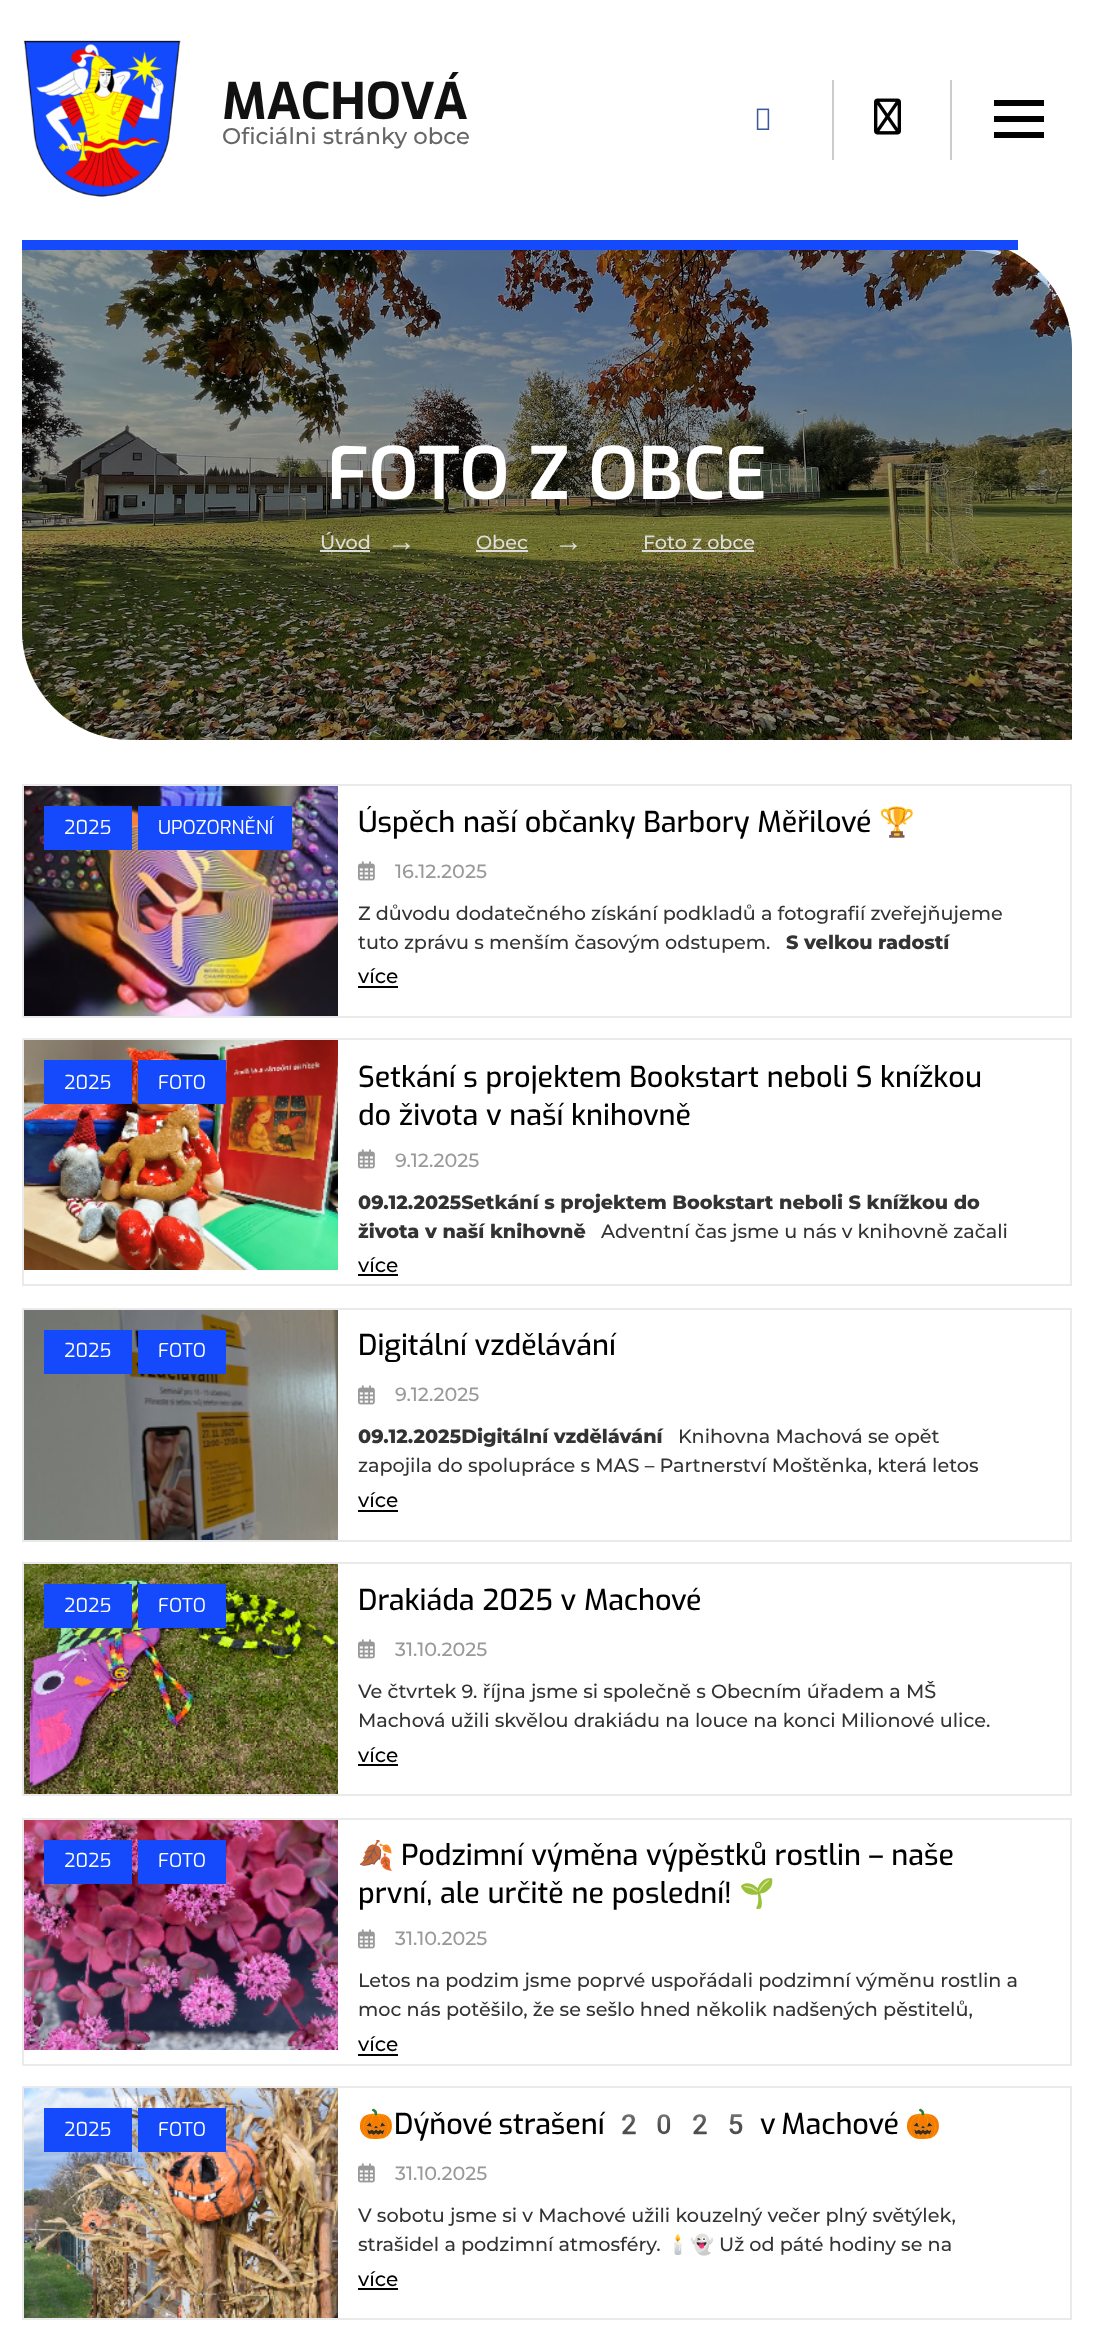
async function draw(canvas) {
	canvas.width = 1094;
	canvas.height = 2338;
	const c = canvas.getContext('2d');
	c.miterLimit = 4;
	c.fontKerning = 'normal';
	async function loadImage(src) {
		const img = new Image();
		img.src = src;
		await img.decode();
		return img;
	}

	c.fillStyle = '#fff';
	c.fillRect(0, 0, 1094, 2338);
	c.drawImage(await loadImage('img1.png'), 23, 40, 158, 157);
	c.font = 'bold 50.5px Exo';
	c.fillStyle = '#111';
	c.fillText('MACHOVÁ', 222, 119);
	c.font = '500 22.75px Montserrat';
	c.fillStyle = '#666';
	c.fillText('Oficiálni stránky obce', 222, 144);
	c.fillStyle = '#ccc';
	c.fillRect(832, 80, 2, 80);
	c.drawImage(await loadImage('img2.png'), 756, 108, 14, 22);
	c.fillRect(950, 80, 2, 80);
	c.drawImage(await loadImage('img3.png'), 874, 98, 27, 37);
	for (const [x, y, w, h, color] of [
		[994, 100, 50, 6, '#000'],
		[994, 116, 50, 6, '#000'],
		[994, 132, 50, 6, '#000'],
	]) {
		c.fillStyle = color;
		c.fillRect(x, y, w, h);
	}
	c.drawImage(await loadImage('img4.png'), 22, 250, 1050, 490);
	c.fillStyle = '#144afc';
	c.fillRect(22, 240, 996, 10);
	c.fillStyle = '#00000066';
	c.beginPath();
	c.moveTo(22, 250);
	c.lineTo(22, 631);
	c.bezierCurveTo(22, 691, 71, 740, 131, 740);
	c.lineTo(1072, 740);
	c.lineTo(1072, 349);
	c.bezierCurveTo(1072, 295, 1023, 250, 963, 250);
	c.closePath();
	c.fill();
	c.font = '600 72px Exo';
	c.fillStyle = '#fff';
	c.fillText('FOTO Z OBCE', 327, 499);
	c.font = '500 19.2px Montserrat';
	c.fillStyle = '#ddd';
	c.fillText('Úvod', 320, 549);
	c.fillRect(320, 550, 50, 2);
	c.font = '28.8px Liberation Sans';
	c.fillText('→', 387, 551);
	c.font = '500 19.2px Montserrat';
	c.fillText('Obec', 476, 549);
	c.fillRect(476, 550, 52, 2);
	c.font = '28.8px Liberation Sans';
	c.fillText('→', 554, 551);
	c.font = '500 19.2px Montserrat';
	c.fillText('Foto z obce', 643, 549);
	c.fillRect(642, 550, 112, 2);
	c.strokeStyle = '#eaeaea';
	c.lineWidth = 2;
	c.strokeRect(23, 785, 1048, 232);
	c.drawImage(await loadImage('img5.png'), 24, 786, 314, 230);
	c.save();
	c.beginPath();
	c.rect(358, 806, 660, 38);
	c.clip();
	c.font = '500 28.8px Exo';
	c.fillStyle = '#000';
	c.fillText('Úspěch naší občanky Barbory Měřilové', 358, 832);
	c.restore();
	c.font = '28.8px Noto Color Emoji';
	c.fillStyle = '#000';
	c.fillText('🏆', 879, 832);
	c.drawImage(await loadImage('img6.png'), 358, 861, 17, 20);
	c.font = '500 19.2px Montserrat';
	c.fillStyle = '#999';
	c.fillText('16.12.2025', 395, 878);
	c.fillStyle = '#333';
	c.fillText('Z důvodu dodatečného získání podkladů a fotografií zveřejňujeme', 358, 920);
	c.fillText('tuto zprávu s menším časovým odstupem.', 358, 949);
	c.font = '800 19.2px Montserrat';
	c.fillText('S velkou radostí', 786, 949);
	c.font = '500 20px Montserrat';
	c.fillStyle = '#000';
	c.fillText('více', 358, 983);
	c.fillRect(358, 986, 40, 2);
	c.fillStyle = '#144afc';
	c.fillRect(44, 806, 88, 44);
	c.font = '19.2px Exo';
	c.fillStyle = '#fff';
	c.fillText('2025', 64, 834);
	c.fillStyle = '#144afc';
	c.fillRect(138, 806, 154, 44);
	c.fillStyle = '#fff';
	c.fillText('UPOZORNĚNÍ', 158, 834);
	c.strokeRect(23, 1039, 1048, 246);
	c.drawImage(await loadImage('img7.png'), 24, 1040, 314, 230);
	c.font = '500 28.8px Exo';
	c.fillStyle = '#000';
	c.fillText('Setkání s projektem Bookstart neboli S knížkou', 358, 1087);
	c.fillText('do života v naší knihovně', 358, 1125);
	c.drawImage(await loadImage('img6.png'), 358, 1149, 17, 20);
	c.font = '500 19.2px Montserrat';
	c.fillStyle = '#999';
	c.fillText('9.12.2025', 395, 1167);
	c.font = '800 19.2px Montserrat';
	c.fillStyle = '#333';
	c.fillText('09.12.2025Setkání s projektem Bookstart neboli S knížkou do', 358, 1209);
	c.fillText('života v naší knihovně', 358, 1238);
	c.font = '500 19.2px Montserrat';
	c.fillText('Adventní čas jsme u nás v knihovně začali', 601, 1238);
	c.font = '500 20px Montserrat';
	c.fillStyle = '#000';
	c.fillText('více', 358, 1272);
	c.fillRect(358, 1274, 40, 2);
	c.fillStyle = '#144afc';
	c.fillRect(44, 1060, 88, 44);
	c.font = '19.2px Exo';
	c.fillStyle = '#fff';
	c.fillText('2025', 64, 1089);
	c.fillStyle = '#144afc';
	c.fillRect(138, 1060, 88, 44);
	c.fillStyle = '#fff';
	c.fillText('FOTO', 158, 1089);
	c.strokeRect(23, 1309, 1048, 232);
	c.drawImage(await loadImage('img8.png'), 24, 1310, 314, 230);
	c.font = '500 28.8px Exo';
	c.fillStyle = '#000';
	c.fillText('Digitální vzdělávání', 358, 1355);
	c.drawImage(await loadImage('img6.png'), 358, 1385, 17, 20);
	c.font = '500 19.2px Montserrat';
	c.fillStyle = '#999';
	c.fillText('9.12.2025', 395, 1401);
	c.font = '800 19.2px Montserrat';
	c.fillStyle = '#333';
	c.fillText('09.12.2025Digitální vzdělávání', 358, 1443);
	c.font = '500 19.2px Montserrat';
	c.fillText('Knihovna Machová se opět', 678, 1443);
	c.fillText('zapojila do spolupráce s MAS – Partnerství Moštěnka, která letos', 358, 1472);
	c.font = '500 20px Montserrat';
	c.fillStyle = '#000';
	c.fillText('více', 358, 1507);
	c.fillRect(358, 1510, 40, 2);
	c.fillStyle = '#144afc';
	c.fillRect(44, 1330, 88, 44);
	c.font = '19.2px Exo';
	c.fillStyle = '#fff';
	c.fillText('2025', 64, 1357);
	c.fillStyle = '#144afc';
	c.fillRect(138, 1330, 88, 44);
	c.fillStyle = '#fff';
	c.fillText('FOTO', 158, 1357);
	c.strokeRect(23, 1563, 1048, 232);
	c.drawImage(await loadImage('img9.png'), 24, 1564, 314, 230);
	c.font = '500 28.8px Exo';
	c.fillStyle = '#000';
	c.fillText('Drakiáda 2025 v Machové', 358, 1610);
	c.drawImage(await loadImage('img6.png'), 358, 1639, 17, 20);
	c.font = '500 19.2px Montserrat';
	c.fillStyle = '#999';
	c.fillText('31.10.2025', 395, 1656);
	c.fillStyle = '#333';
	c.fillText('Ve čtvrtek 9. října jsme si společně s Obecním úřadem a MŠ', 358, 1698);
	c.fillText('Machová užili skvělou drakiádu na louce na konci Milionové ulice.', 358, 1727);
	c.font = '500 20px Montserrat';
	c.fillStyle = '#000';
	c.fillText('více', 358, 1762);
	c.fillRect(358, 1764, 40, 2);
	c.fillStyle = '#144afc';
	c.fillRect(44, 1584, 88, 44);
	c.font = '19.2px Exo';
	c.fillStyle = '#fff';
	c.fillText('2025', 64, 1612);
	c.fillStyle = '#144afc';
	c.fillRect(138, 1584, 88, 44);
	c.fillStyle = '#fff';
	c.fillText('FOTO', 158, 1612);
	c.strokeRect(23, 1819, 1048, 246);
	c.drawImage(await loadImage('img10.png'), 24, 1820, 314, 230);
	c.save();
	c.beginPath();
	c.rect(358, 1840, 660, 72);
	c.clip();
	c.font = '28.8px Noto Color Emoji';
	c.fillStyle = '#000';
	c.fillText('🍂', 358, 1865);
	c.restore();
	c.font = '500 28.8px Exo';
	c.fillStyle = '#000';
	c.fillText('Podzimní výměna výpěstků rostlin – naše', 401, 1865);
	c.fillText('první, ale určitě ne poslední!', 358, 1903);
	c.font = '28.8px Noto Color Emoji';
	c.fillText('🌱', 739, 1903);
	c.drawImage(await loadImage('img6.png'), 358, 1929, 17, 20);
	c.font = '500 19.2px Montserrat';
	c.fillStyle = '#999';
	c.fillText('31.10.2025', 395, 1945);
	c.fillStyle = '#333';
	c.fillText('Letos na podzim jsme poprvé uspořádali podzimní výměnu rostlin a', 358, 1987);
	c.fillText('moc nás potěšilo, že se sešlo hned několik nadšených pěstitelů,', 358, 2016);
	c.font = '500 20px Montserrat';
	c.fillStyle = '#000';
	c.fillText('více', 358, 2051);
	c.fillRect(358, 2054, 40, 2);
	c.fillStyle = '#144afc';
	c.fillRect(44, 1840, 88, 44);
	c.font = '19.2px Exo';
	c.fillStyle = '#fff';
	c.fillText('2025', 64, 1867);
	c.fillStyle = '#144afc';
	c.fillRect(138, 1840, 88, 44);
	c.fillStyle = '#fff';
	c.fillText('FOTO', 158, 1867);
	c.strokeRect(23, 2087, 1048, 232);
	c.drawImage(await loadImage('img11.png'), 24, 2088, 314, 230);
	c.save();
	c.beginPath();
	c.rect(358, 2108, 660, 38);
	c.clip();
	c.font = '28.8px Noto Color Emoji';
	c.fillStyle = '#000';
	c.fillText('🎃', 358, 2134);
	c.restore();
	c.wordSpacing = '-2px';
	c.font = '500 28.8px Exo';
	c.fillStyle = '#000';
	c.fillText('Dýňové strašení', 394, 2134);
	c.wordSpacing = '0px';
	c.font = '28.8px Noto Color Emoji';
	c.fillText('2025', 611, 2134);
	c.wordSpacing = '-2px';
	c.font = '500 28.8px Exo';
	c.fillText('v Machové', 760, 2134);
	c.wordSpacing = '0px';
	c.font = '28.8px Noto Color Emoji';
	c.fillText('🎃', 905, 2134);
	c.drawImage(await loadImage('img6.png'), 358, 2163, 17, 20);
	c.font = '500 19.2px Montserrat';
	c.fillStyle = '#999';
	c.fillText('31.10.2025', 395, 2180);
	c.fillStyle = '#333';
	c.fillText('V sobotu jsme si v Machové užili kouzelný večer plný světýlek,', 358, 2222);
	c.fillText('strašidel a podzimní atmosféry.', 358, 2251);
	c.font = '19.2px Noto Color Emoji';
	c.fillText('🕯️👻', 666, 2251);
	c.font = '500 19.2px Montserrat';
	c.fillText('Už od páté hodiny se na', 719, 2251);
	c.font = '500 20px Montserrat';
	c.fillStyle = '#000';
	c.fillText('více', 358, 2286);
	c.fillRect(358, 2288, 40, 2);
	c.fillStyle = '#144afc';
	c.fillRect(44, 2108, 88, 44);
	c.font = '19.2px Exo';
	c.fillStyle = '#fff';
	c.fillText('2025', 64, 2136);
	c.fillStyle = '#144afc';
	c.fillRect(138, 2108, 88, 44);
	c.fillStyle = '#fff';
	c.fillText('FOTO', 158, 2136);
}

draw(document.querySelector('canvas'));
